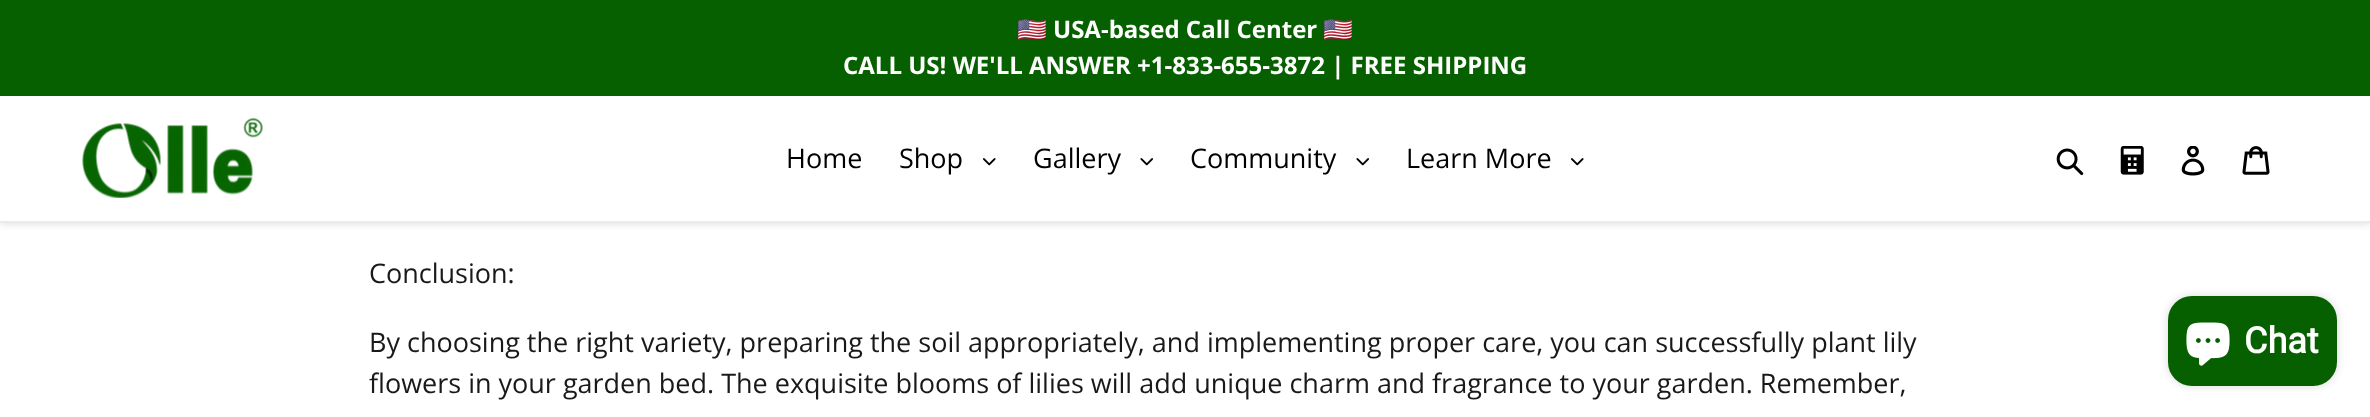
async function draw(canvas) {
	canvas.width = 2370;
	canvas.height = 417;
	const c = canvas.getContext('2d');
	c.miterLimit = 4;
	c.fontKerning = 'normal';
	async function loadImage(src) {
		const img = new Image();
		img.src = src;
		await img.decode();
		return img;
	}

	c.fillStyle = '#fff';
	c.fillRect(0, 0, 2370, 417);
	c.fillStyle = '#0000001a';
	c.filter = 'blur(3px)';
	c.beginPath();
	c.rect(0, 3, 2370, 222);
	c.fill();
	c.filter = 'none';
	c.fillStyle = '#076000';
	c.fillRect(0, 0, 2370, 96);
	c.font = 'bold 24px Noto Color Emoji';
	c.fillStyle = '#fff';
	c.fillText('🇺🇸', 1017, 38);
	c.font = 'bold 24px Open Sans';
	c.fillText('USA-based Call Center', 1053, 38);
	c.font = 'bold 24px Noto Color Emoji';
	c.fillText('🇺🇸', 1323, 38);
	c.font = 'bold 24px Open Sans';
	c.fillText('CALL US! WE\'LL ANSWER +1-833-655-3872 | FREE SHIPPING', 843, 74);
	c.fillRect(0, 96, 2370, 125);
	c.fillStyle = '#ebebeb';
	c.fillRect(0, 221, 2370, 2);
	c.drawImage(await loadImage('img1.png'), 82, 118, 181, 80);
	c.font = '27px Open Sans';
	c.fillStyle = '#000';
	c.fillText('Home', 786, 168);
	c.fillText('Shop', 899, 168);
	c.drawImage(await loadImage('img2.png'), 983, 158, 13, 8);
	c.fillText('Gallery', 1033, 168);
	c.drawImage(await loadImage('img3.png'), 1140, 158, 13, 8);
	c.fillText('Community', 1190, 168);
	c.drawImage(await loadImage('img3.png'), 1356, 158, 13, 8);
	c.fillText('Learn More', 1406, 168);
	c.drawImage(await loadImage('img2.png'), 1571, 158, 13, 8);
	c.drawImage(await loadImage('img4.png'), 2056, 148, 28, 28);
	c.drawImage(await loadImage('img5.png'), 2120, 146, 24, 29);
	c.drawImage(await loadImage('img6.png'), 2181, 146, 24, 30);
	c.drawImage(await loadImage('img7.png'), 2242, 146, 28, 29);
	c.fillStyle = '#191919';
	for (const [text, x, y] of [
		['Conclusion:', 369, 283],
		['By choosing the right variety, preparing the soil appropriately, and implementing proper care, you can successfully plant lily', 369, 352],
		['flowers in your garden bed. The exquisite blooms of lilies will add unique charm and fragrance to your garden. Remember,', 369, 393],
	]) {
		c.fillText(text, x, y);
	}
	c.fillStyle = '#00000026';
	c.filter = 'blur(4px)';
	c.beginPath();
	c.roundRect(2168, 296, 169, 90, 24);
	c.fill();
	c.filter = 'none';
	c.fillStyle = '#076000';
	c.beginPath();
	c.roundRect(2168, 296, 169, 90, 24);
	c.fill();
	c.drawImage(await loadImage('img8.png'), 2186, 322, 44, 44);
	c.font = 'bold 36px Roboto';
	c.fillStyle = '#fff';
	c.fillText('Chat', 2244, 353);
}

draw(document.querySelector('canvas'));
